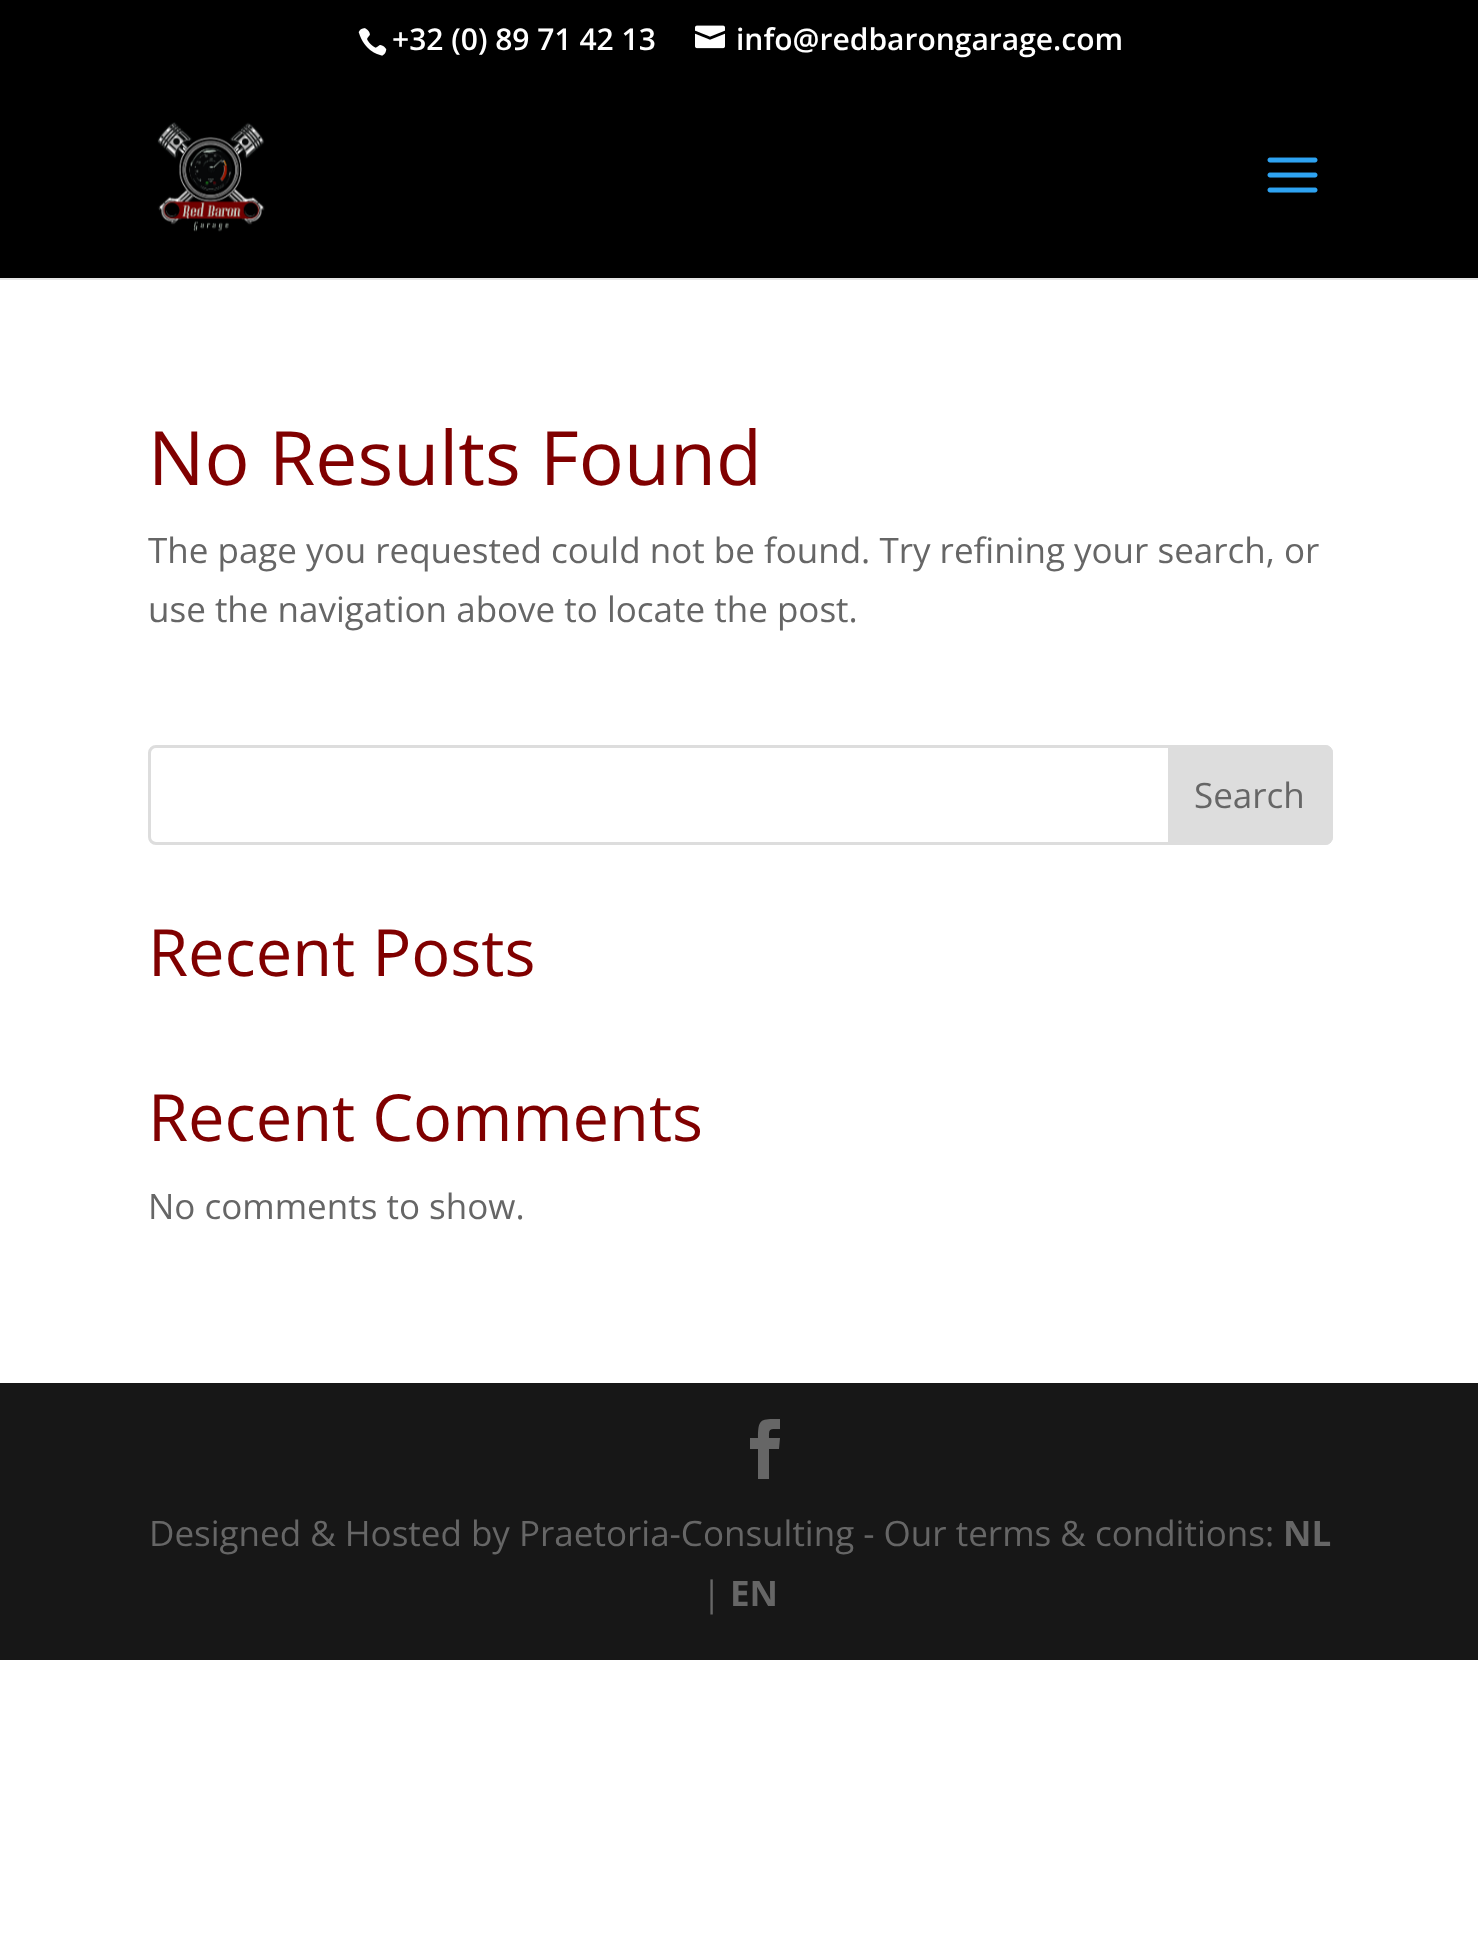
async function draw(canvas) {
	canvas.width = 1478;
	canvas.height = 1951;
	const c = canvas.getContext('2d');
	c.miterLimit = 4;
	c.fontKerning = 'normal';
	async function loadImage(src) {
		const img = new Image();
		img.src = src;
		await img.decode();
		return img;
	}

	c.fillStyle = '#fff';
	c.fillRect(0, 0, 1478, 1951);
	c.fillStyle = '#e6e6e6';
	c.fillRect(0, 278, 1478, 2);
	c.fillStyle = '#000';
	c.fillRect(0, 0, 1478, 278);
	c.drawImage(await loadImage('img1.png'), 157, 122, 108, 110);
	c.drawImage(await loadImage('img2.png'), 1267, 157, 51, 36);
	c.drawImage(await loadImage('img3.png'), 358, 28, 29, 28);
	c.font = '600 30px Open Sans';
	c.fillStyle = '#fff';
	c.fillText('+32 (0) 89 71 42 13', 392, 50);
	c.drawImage(await loadImage('img4.png'), 695, 25, 30, 24);
	c.fillText('info@redbarongarage.com', 736, 50);
	c.font = '75px Open Sans';
	c.fillStyle = '#800000';
	c.fillText('No Results Found', 148, 485);
	c.font = '35px Open Sans';
	c.fillStyle = '#666';
	c.fillText('The page you requested could not be found. Try refining your search, or', 148, 563);
	c.fillText('use the navigation above to locate the post.', 148, 622);
	c.beginPath();
	c.roundRect(149.5, 746.5, 1182, 97, 6.5);
	c.strokeStyle = '#ddd';
	c.lineWidth = 3;
	c.stroke();
	c.fillStyle = '#ddd';
	c.beginPath();
	c.roundRect(1169.5, 746.5, 162, 97, [0, 6.5, 6.5, 0]);
	c.fill();
	c.stroke();
	c.fillStyle = '#666';
	c.fillText('Search', 1194, 808);
	c.font = '65px Open Sans';
	c.fillStyle = '#800000';
	c.fillText('Recent Posts', 148, 976);
	c.fillText('Recent Comments', 148, 1141);
	c.font = '35px Open Sans';
	c.fillStyle = '#666';
	c.fillText('No comments to show.', 148, 1219);
	c.fillStyle = '#171717';
	c.fillRect(0, 1383, 1478, 277);
	c.fillStyle = '#666';
	c.beginPath();
	c.moveTo(758, 1479);
	c.lineTo(769, 1479);
	c.lineTo(769, 1449);
	c.lineTo(779, 1449);
	c.lineTo(780, 1438);
	c.lineTo(769, 1438);
	c.bezierCurveTo(769, 1428, 769, 1429, 780, 1429);
	c.lineTo(780, 1419);
	c.bezierCurveTo(761, 1419, 758, 1418, 758, 1438);
	c.lineTo(750, 1438);
	c.lineTo(750, 1449);
	c.lineTo(758, 1449);
	c.closePath();
	c.fill();
	c.fillText('Designed & Hosted by Praetoria-Consulting - Our terms & conditions:', 149, 1546);
	c.font = 'bold 35px Open Sans';
	c.fillText('NL', 1283, 1546);
	c.font = '35px Open Sans';
	c.fillText('|', 702, 1606);
	c.font = 'bold 35px Open Sans';
	c.fillText('EN', 730, 1606);
}

draw(document.querySelector('canvas'));
